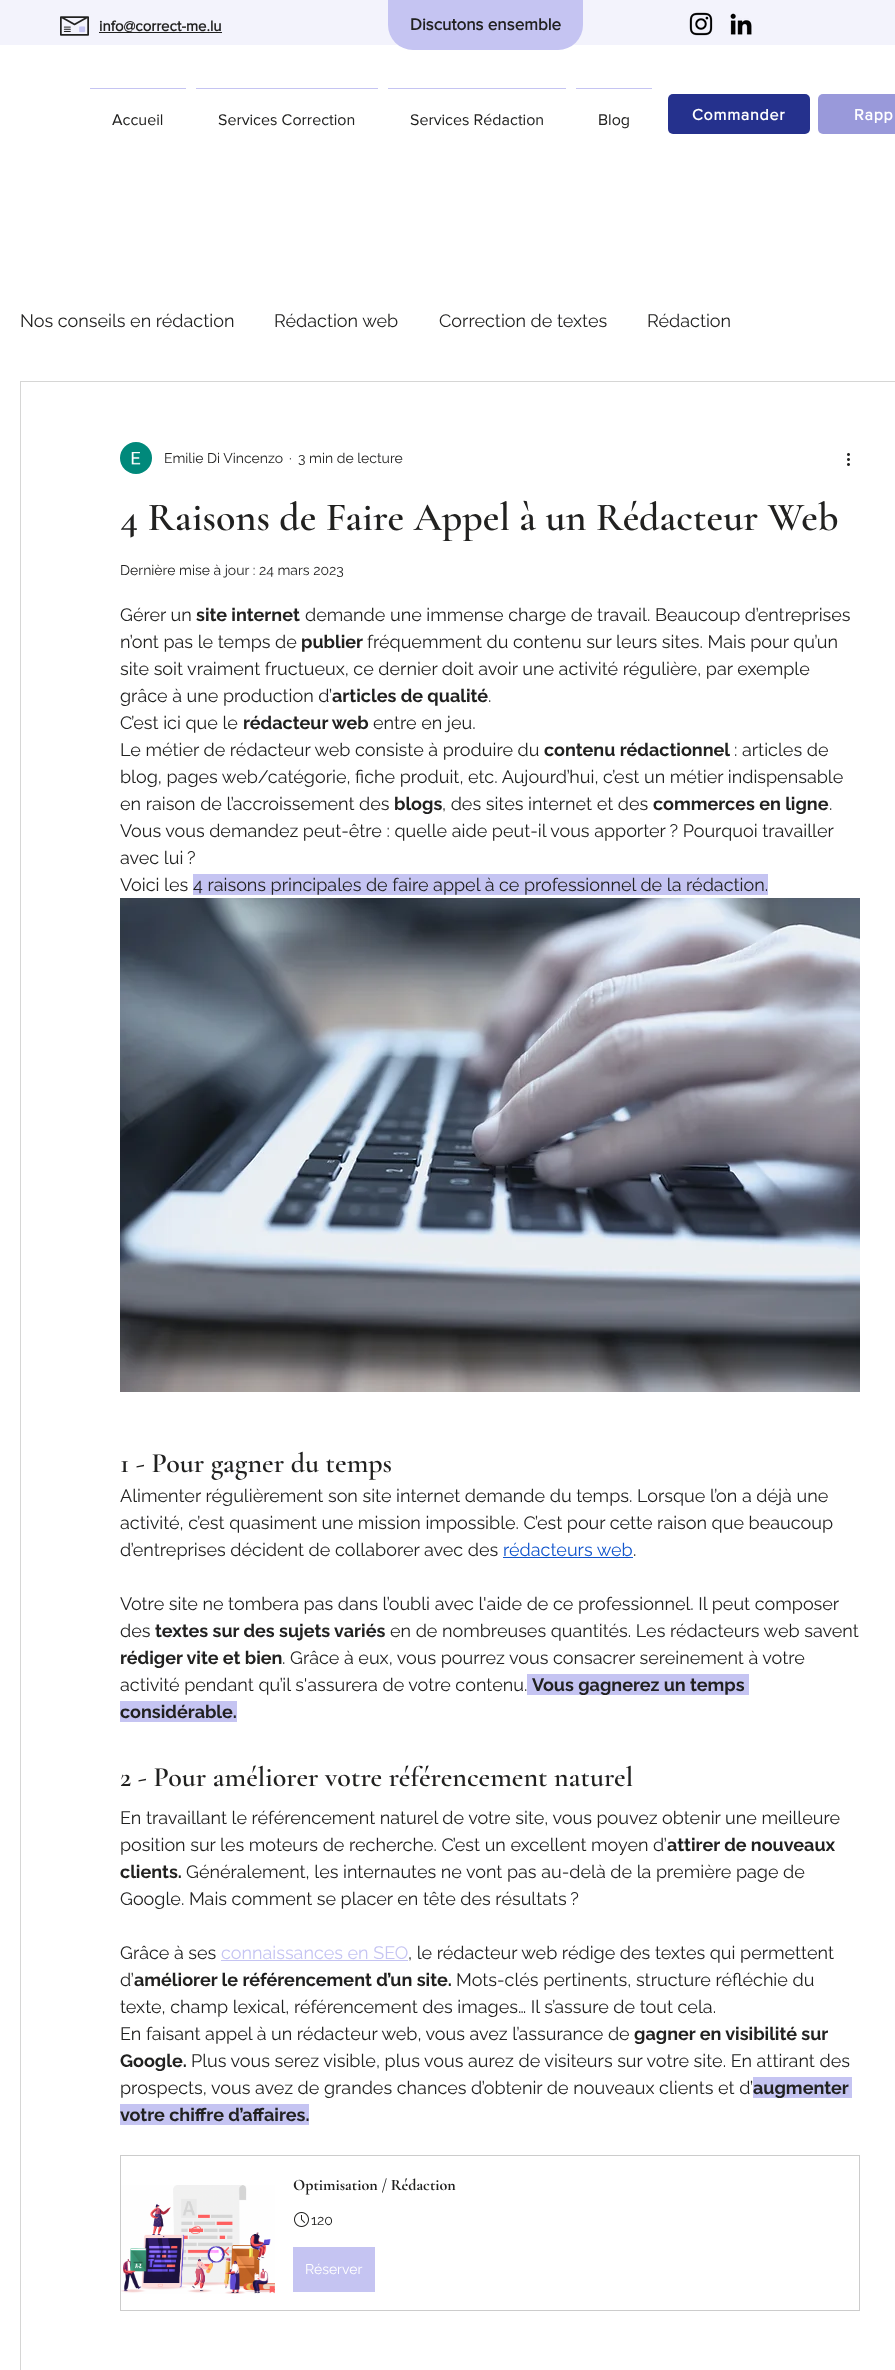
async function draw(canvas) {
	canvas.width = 895;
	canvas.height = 2370;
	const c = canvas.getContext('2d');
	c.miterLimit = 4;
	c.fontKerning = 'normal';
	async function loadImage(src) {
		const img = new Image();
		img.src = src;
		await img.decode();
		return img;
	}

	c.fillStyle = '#fff';
	c.fillRect(0, 0, 895, 2370);
	c.fillStyle = '#f3f3fc';
	c.fillRect(0, 0, 895, 45);
	c.drawImage(await loadImage('img1.png'), 60, 16, 29, 20);
	c.fillStyle = '#212120';
	c.fillRect(99, 32, 123, 1);
	c.font = 'bold 15px "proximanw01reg"';
	c.fillText('info@correct-me.lu', 99, 31);
	c.fillStyle = '#c5c4f2';
	c.beginPath();
	c.roundRect(388, 0, 195, 50, [0, 0, 25, 25]);
	c.fill();
	c.font = 'bold 17px "proximanw01reg"';
	c.fillStyle = '#212120';
	c.fillText('Discutons ensemble', 410, 30);
	c.drawImage(await loadImage('img2.png'), 689, 12, 24, 24);
	c.drawImage(await loadImage('img3.png'), 730, 13, 22, 22);
	c.fillStyle = '#c5c4f2';
	c.fillRect(90, 88, 96, 1);
	c.font = '16px "proximanw01reg"';
	c.fillStyle = '#212120';
	c.fillText('Accueil', 112, 125);
	c.fillStyle = '#c5c4f2';
	c.fillRect(196, 88, 182, 1);
	c.fillStyle = '#212120';
	c.fillText('Services Correction', 218, 125);
	c.fillStyle = '#c5c4f2';
	c.fillRect(388, 88, 178, 1);
	c.fillStyle = '#212120';
	c.fillText('Services Rédaction', 410, 125);
	c.fillStyle = '#c5c4f2';
	c.fillRect(576, 88, 76, 1);
	c.fillStyle = '#212120';
	c.fillText('Blog', 598, 125);
	c.fillStyle = '#25318d';
	c.beginPath();
	c.roundRect(668, 94, 142, 40, 5);
	c.fill();
	c.letterSpacing = '0.75px';
	c.font = 'bold 16px "proximanw01reg"';
	c.fillStyle = '#fff';
	c.fillText('Commander', 692, 120);
	c.fillStyle = '#9999da';
	c.beginPath();
	c.roundRect(818, 94, 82, 40, 5);
	c.fill();
	c.fillStyle = '#fff';
	c.fillText('Rapp', 854, 120);
	c.letterSpacing = '0px';
	c.font = '18px Raleway';
	c.fillStyle = '#212120';
	for (const [text, x, y] of [
		['Nos conseils en rédaction', 20, 327],
		['Rédaction web', 274, 327],
		['Correction de textes', 439, 327],
		['Rédaction', 647, 327],
	]) {
		c.fillText(text, x, y);
	}
	c.strokeStyle = '#d6d6d5';
	c.strokeRect(20.5, 381.5, 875, 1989);
	c.drawImage(await loadImage('img4.png'), 120, 442, 32, 32);
	c.font = '14px Raleway';
	for (const [text, x, y] of [
		['Emilie Di Vincenzo', 164, 463],
		['·', 289, 463],
		['3 min de lecture', 298, 463],
	]) {
		c.fillText(text, x, y);
	}
	c.drawImage(await loadImage('img5.png'), 847, 453, 3, 13);
	c.font = '600 40px Cormorant Garamond';
	c.fillText('4 Raisons de Faire Appel à un Rédacteur Web', 120, 530);
	c.font = '14px Raleway';
	c.fillText('Dernière mise à jour : 24 mars 2023', 120, 575);
	c.font = '18px Raleway';
	c.fillText('Gérer un', 120, 621);
	c.font = 'bold 18px Raleway';
	c.fillText('site internet', 196, 621);
	c.font = '18px Raleway';
	c.fillText('demande une immense charge de travail. Beaucoup d’entreprises', 305, 621);
	c.fillText('n’ont pas le temps de', 120, 648);
	c.font = 'bold 18px Raleway';
	c.fillText('publier', 301, 648);
	c.font = '18px Raleway';
	for (const [text, x, y] of [
		['fréquemment du contenu sur leurs sites. Mais pour qu’un', 367, 648],
		['site soit vraiment fructueux, ce dernier doit avoir une activité régulière, par exemple', 120, 675],
		['grâce à une production d’', 120, 702],
	]) {
		c.fillText(text, x, y);
	}
	c.font = 'bold 18px Raleway';
	c.fillText('articles de qualité', 332, 702);
	c.font = '18px Raleway';
	c.fillText('.', 488, 702);
	c.fillText('C’est ici que le', 120, 729);
	c.font = 'bold 18px Raleway';
	c.fillText('rédacteur web', 243, 729);
	c.font = '18px Raleway';
	c.fillText('entre en jeu.', 373, 729);
	c.fillText('Le métier de rédacteur web consiste à produire du', 120, 756);
	c.font = 'bold 18px Raleway';
	c.fillText('contenu rédactionnel', 544, 756);
	c.font = '18px Raleway';
	for (const [text, x, y] of [
		[': articles de', 734, 756],
		['blog, pages web/catégorie, fiche produit, etc. Aujourd’hui, c’est un métier indispensable', 120, 783],
		['en raison de l’accroissement des', 120, 810],
	]) {
		c.fillText(text, x, y);
	}
	c.font = 'bold 18px Raleway';
	c.fillText('blogs', 394, 810);
	c.font = '18px Raleway';
	c.fillText(', des sites internet et des', 442, 810);
	c.font = 'bold 18px Raleway';
	c.fillText('commerces en ligne', 653, 810);
	c.font = '18px Raleway';
	for (const [text, x, y] of [
		['.', 829, 810],
		['Vous vous demandez peut-être : quelle aide peut-il vous apporter ? Pourquoi travailler', 120, 837],
		['avec lui ?', 120, 864],
		['Voici les', 120, 891],
	]) {
		c.fillText(text, x, y);
	}
	c.fillStyle = '#c5c4f2';
	c.fillRect(193, 874, 575, 21);
	c.fillStyle = '#212120';
	c.fillText('4 raisons principales de faire appel à ce professionnel de la rédaction.', 193, 891);
	c.drawImage(await loadImage('img6.png'), 120, 898, 740, 494);
	c.font = '600 28px Cormorant Garamond';
	c.fillText('1 - Pour gagner du temps', 120, 1472);
	c.font = '18px Raleway';
	for (const [text, x, y] of [
		['Alimenter régulièrement son site internet demande du temps. Lorsque l’on a déjà une', 120, 1502],
		['activité, c’est quasiment une mission impossible. C’est pour cette raison que beaucoup', 120, 1529],
		['d’entreprises décident de collaborer avec des', 120, 1556],
	]) {
		c.fillText(text, x, y);
	}
	c.fillStyle = '#15c';
	c.fillText('rédacteurs web', 503, 1556);
	c.fillRect(503, 1557, 130, 1);
	c.fillStyle = '#212120';
	for (const [text, x, y] of [
		['.', 633, 1556],
		['Votre site ne tombera pas dans l’oubli avec l\'aide de ce professionnel. Il peut composer', 120, 1610],
		['des', 120, 1637],
	]) {
		c.fillText(text, x, y);
	}
	c.font = 'bold 18px Raleway';
	c.fillText('textes sur des sujets variés', 155, 1637);
	c.font = '18px Raleway';
	c.fillText('en de nombreuses quantités. Les rédacteurs web savent', 390, 1637);
	c.font = 'bold 18px Raleway';
	c.fillText('rédiger vite et bien', 120, 1664);
	c.font = '18px Raleway';
	c.fillText('. Grâce à eux, vous pourrez vous consacrer sereinement à votre', 282, 1664);
	c.fillText('activité pendant qu’il s\'assurera de votre contenu.', 120, 1691);
	c.fillStyle = '#c5c4f2';
	c.fillRect(527, 1674, 222, 21);
	c.font = 'bold 18px Raleway';
	c.fillStyle = '#212120';
	c.fillText('Vous gagnerez un temps', 532, 1691);
	c.fillStyle = '#c5c4f2';
	c.fillRect(120, 1701, 117, 21);
	c.fillStyle = '#212120';
	c.fillText('considérable.', 120, 1718);
	c.font = '600 28px Cormorant Garamond';
	c.fillText('2 - Pour améliorer votre référencement naturel', 120, 1786);
	c.font = '18px Raleway';
	c.fillText('En travaillant le référencement naturel de votre site, vous pouvez obtenir une meilleure', 120, 1824);
	c.fillText('position sur les moteurs de recherche. C’est un excellent moyen d’', 120, 1851);
	c.font = 'bold 18px Raleway';
	c.fillText('attirer de nouveaux', 667, 1851);
	c.fillText('clients.', 120, 1878);
	c.font = '18px Raleway';
	for (const [text, x, y] of [
		['Généralement, les internautes ne vont pas au-delà de la première page de', 186, 1878],
		['Google. Mais comment se placer en tête des résultats ?', 120, 1905],
		['Grâce à ses', 120, 1959],
	]) {
		c.fillText(text, x, y);
	}
	c.fillStyle = '#c5c4f2';
	c.fillText('connaissances en SEO', 221, 1959);
	c.fillRect(221, 1960, 187, 1);
	c.fillStyle = '#212120';
	c.fillText(', le rédacteur web rédige des textes qui permettent', 408, 1959);
	c.fillText('d’', 120, 1986);
	c.font = 'bold 18px Raleway';
	c.fillText('améliorer le référencement d’un site.', 134, 1986);
	c.font = '18px Raleway';
	for (const [text, x, y] of [
		['Mots-clés pertinents, structure réfléchie du', 456, 1986],
		['texte, champ lexical, référencement des images… Il s’assure de tout cela.', 120, 2013],
		['En faisant appel à un rédacteur web, vous avez l’assurance de', 120, 2040],
	]) {
		c.fillText(text, x, y);
	}
	c.font = 'bold 18px Raleway';
	c.fillText('gagner en visibilité sur', 634, 2040);
	c.fillText('Google.', 120, 2067);
	c.font = '18px Raleway';
	c.fillText('Plus vous serez visible, plus vous aurez de visiteurs sur votre site. En attirant des', 191, 2067);
	c.fillText('prospects, vous avez de grandes chances d’obtenir de nouveaux clients et d’', 120, 2094);
	c.fillStyle = '#c5c4f2';
	c.fillRect(753, 2077, 99, 21);
	c.font = 'bold 18px Raleway';
	c.fillStyle = '#212120';
	c.fillText('augmenter', 753, 2094);
	c.fillStyle = '#c5c4f2';
	c.fillRect(120, 2104, 189, 21);
	c.fillStyle = '#212120';
	c.fillText('votre chiffre d’affaires.', 120, 2121);
	c.strokeStyle = '#ccc';
	c.strokeRect(120.5, 2155.5, 739, 155);
	c.drawImage(await loadImage('img7.png'), 121, 2185, 154, 109);
	c.font = 'bold 16px Cormorant Garamond';
	c.fillText('Optimisation / Rédaction', 293, 2190);
	c.drawImage(await loadImage('img8.png'), 294, 2212, 15, 15);
	c.font = '14px Raleway';
	c.fillText('120', 311, 2225);
	c.fillStyle = '#c5c4f2';
	c.fillRect(293, 2247, 82, 45);
	c.fillStyle = '#fff';
	c.fillText('Réserver', 305, 2274);
}

draw(document.querySelector('canvas'));
